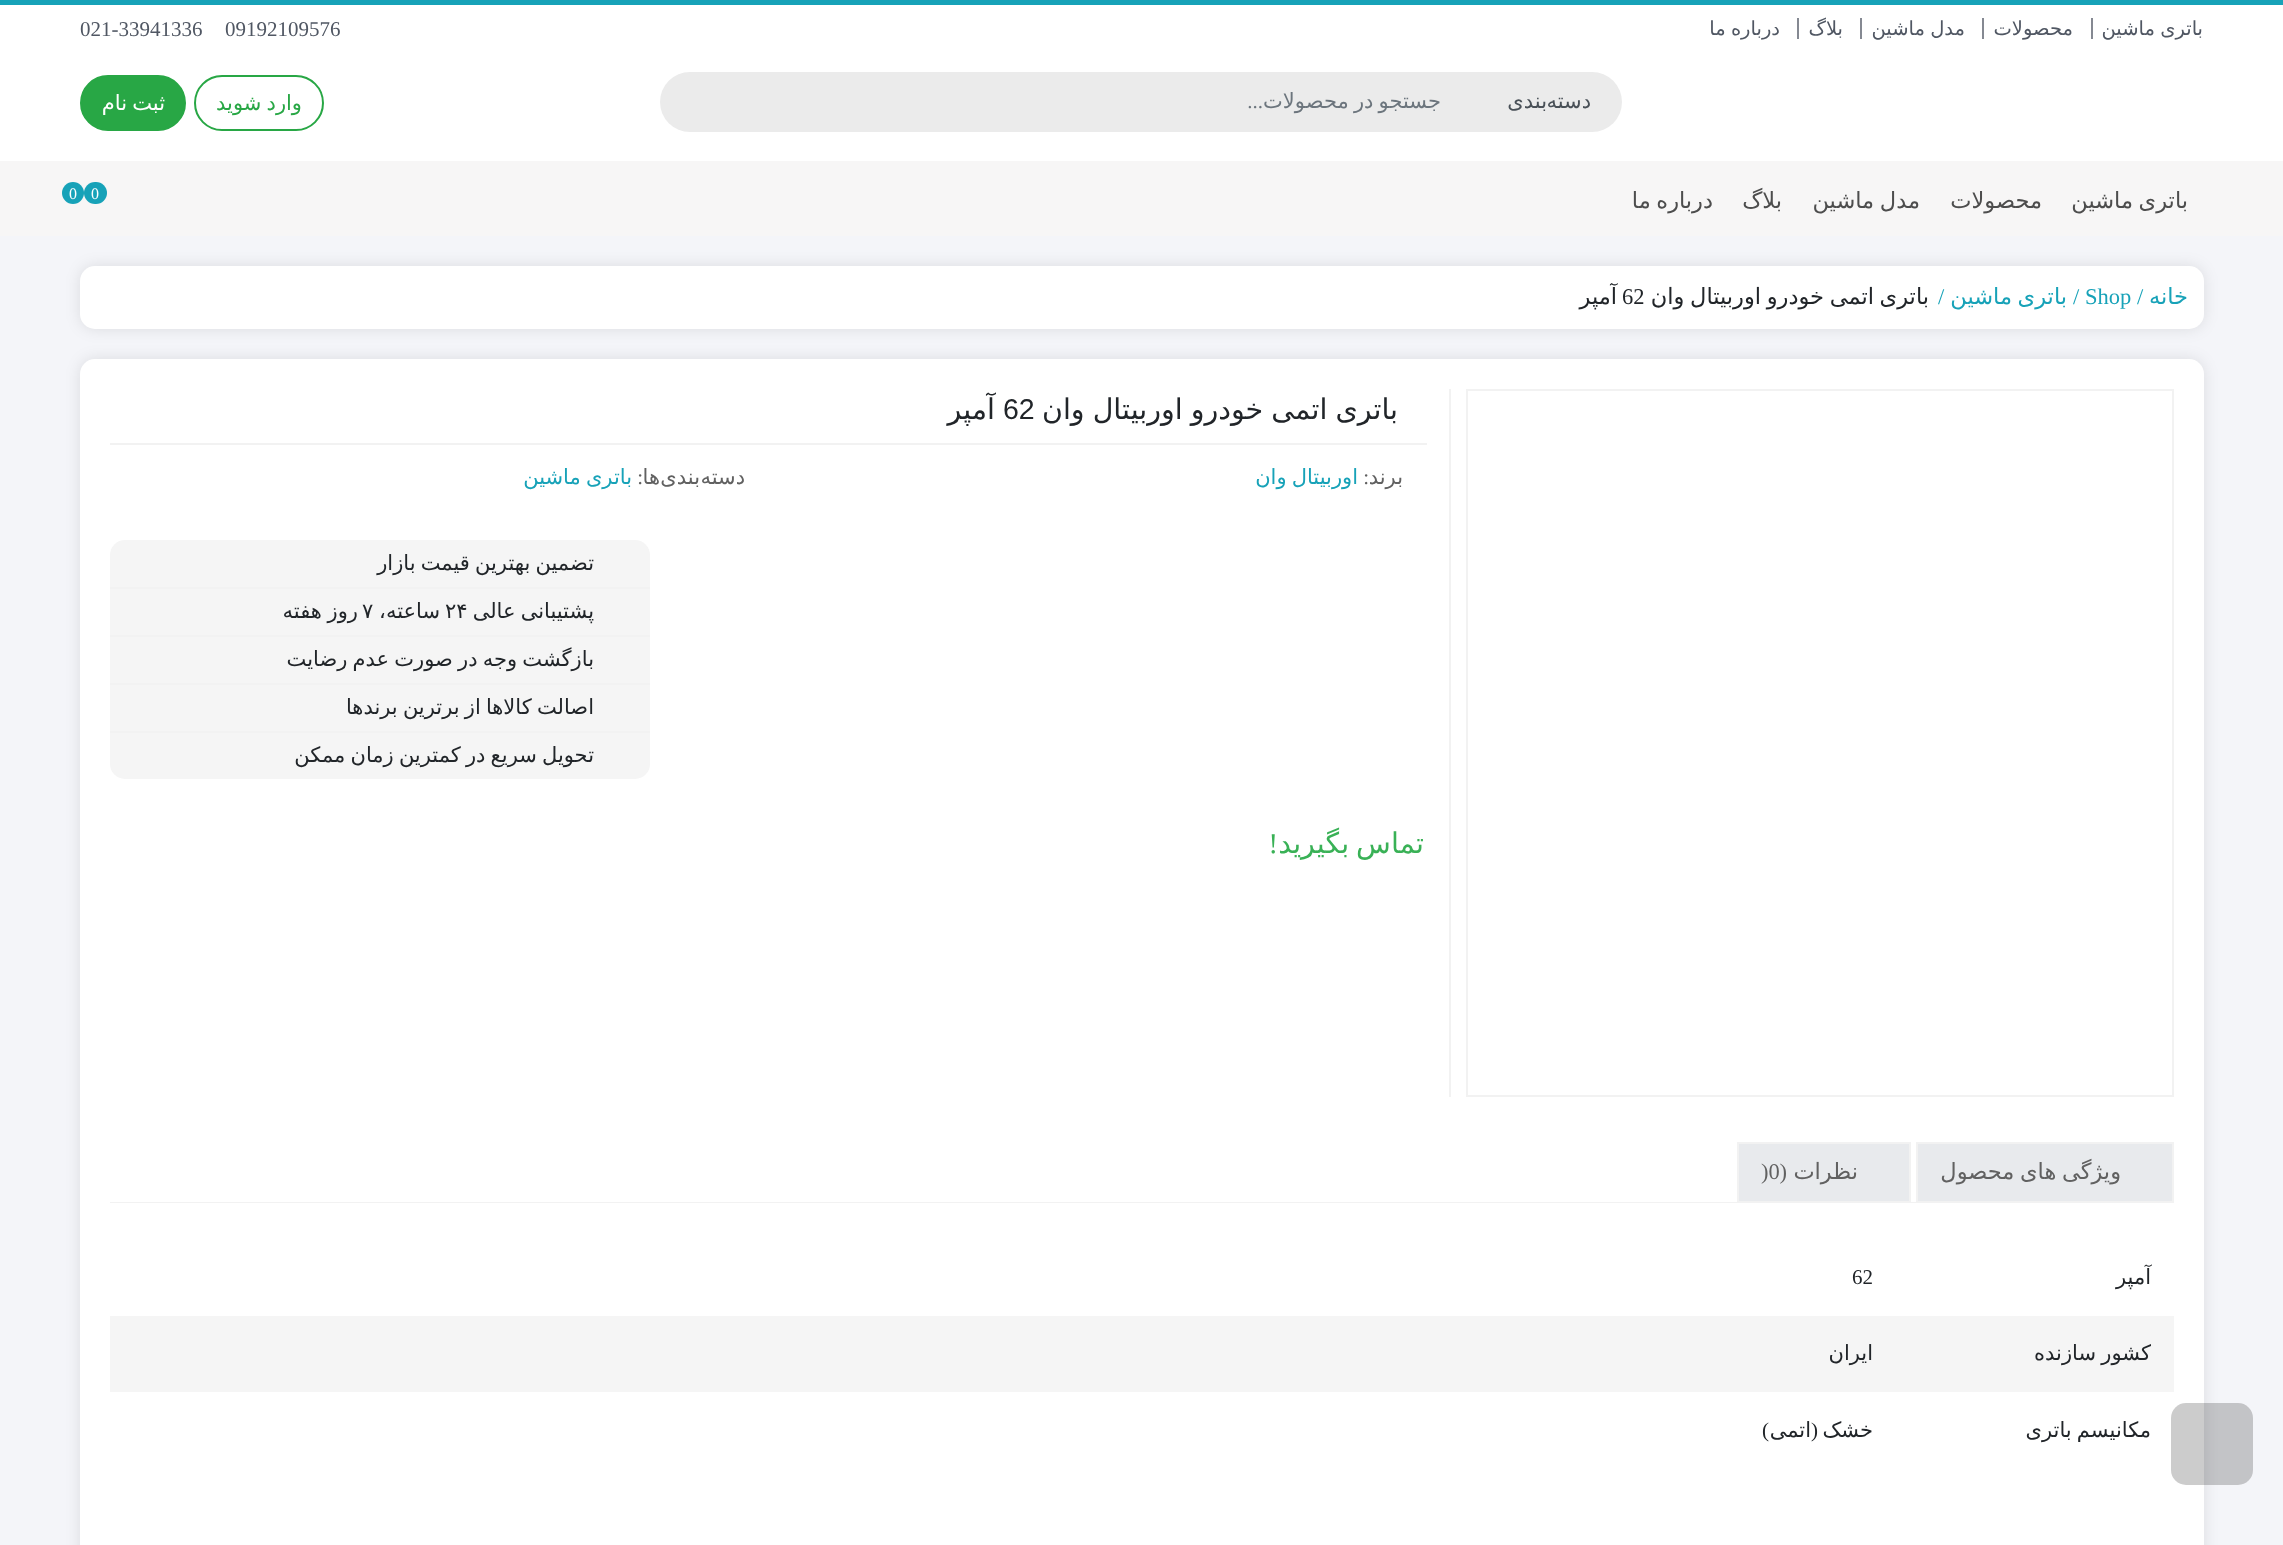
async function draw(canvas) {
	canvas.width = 2283;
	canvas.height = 1545;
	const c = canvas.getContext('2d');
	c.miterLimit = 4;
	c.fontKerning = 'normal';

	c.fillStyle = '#f4f5f9';
	c.fillRect(0, 0, 2283, 1545);
	c.fillStyle = '#fff';
	c.fillRect(0, 5, 2283, 156);
	c.fillStyle = '#17a2b8';
	c.fillRect(0, 0, 2283, 5);
	c.wordSpacing = '-1px';
	c.direction = 'rtl';
	c.font = '19.5px DejaVu Sans';
	c.fillStyle = '#505763';
	c.fillText('باتری ماشین', 2203, 35);
	c.fillStyle = '#858992';
	c.fillRect(2091, 18, 2, 21);
	c.wordSpacing = '0px';
	c.fillStyle = '#505763';
	c.fillText('محصولات', 2073, 35);
	c.fillStyle = '#858992';
	c.fillRect(1982, 18, 2, 21);
	c.wordSpacing = '-1px';
	c.fillStyle = '#505763';
	c.fillText('مدل ماشین', 1965, 35);
	c.fillStyle = '#858992';
	c.fillRect(1860, 18, 2, 21);
	c.wordSpacing = '0px';
	c.fillStyle = '#505763';
	c.fillText('بلاگ', 1843, 35);
	c.fillStyle = '#858992';
	c.fillRect(1797, 18, 2, 21);
	c.wordSpacing = '-1px';
	c.fillStyle = '#505763';
	c.fillText('درباره ما', 1780, 35);
	c.wordSpacing = '0px';
	c.direction = 'ltr';
	c.font = '21px Liberation Serif';
	c.fillText('09192109576', 225, 36);
	c.fillText('021-33941336', 80, 36);
	c.fillStyle = '#ebebeb';
	c.beginPath();
	c.roundRect(1460, 72, 162, 60, [0, 30, 30, 0]);
	c.fill();
	c.direction = 'rtl';
	c.font = '21px DejaVu Sans';
	c.fillStyle = '#495057';
	c.fillText('دسته', 1591, 108);
	c.fillText('بندی', 1547, 108);
	c.fillStyle = '#ebebeb';
	c.fillRect(693, 72, 767, 60);
	c.save();
	c.beginPath();
	c.rect(711, 89, 731, 25);
	c.clip();
	c.wordSpacing = '-1.5px';
	c.fillStyle = '#6c757d';
	c.fillText('جستجو در محصولات', 1441, 108);
	c.restore();
	c.font = '21px Liberation Serif';
	c.fillStyle = '#6c757d';
	c.fillText('...', 1263, 108);
	c.fillStyle = '#ebebeb';
	c.beginPath();
	c.roundRect(660, 72, 33, 60, [30, 0, 0, 30]);
	c.fill();
	c.beginPath();
	c.roundRect(195, 76, 128, 54, 27);
	c.strokeStyle = '#28a745';
	c.lineWidth = 2;
	c.stroke();
	c.wordSpacing = '-1.5px';
	c.font = '21px DejaVu Sans';
	c.fillStyle = '#28a745';
	c.fillText('وارد شوید', 302, 110);
	c.beginPath();
	c.roundRect(81, 76, 104, 54, 27);
	c.fill();
	c.stroke();
	c.fillStyle = '#fff';
	c.fillText('ثبت نام', 165, 110);
	c.fillStyle = '#f7f6f6';
	c.fillRect(0, 161, 2283, 75);
	c.font = '22.5px DejaVu Sans';
	c.fillStyle = '#4d4d4d';
	c.fillText('باتری ماشین', 2188, 208);
	c.wordSpacing = '0px';
	c.fillText('محصولات', 2042, 208);
	c.wordSpacing = '-1.5px';
	c.fillText('مدل ماشین', 1920, 208);
	c.wordSpacing = '0px';
	c.fillText('بلاگ', 1782, 208);
	c.wordSpacing = '-1.5px';
	c.fillText('درباره ما', 1713, 208);
	c.fillStyle = '#17a2b8';
	c.beginPath();
	c.roundRect(84, 182, 23, 22, 11);
	c.fill();
	c.wordSpacing = '0px';
	c.direction = 'ltr';
	c.font = '16px Liberation Serif';
	c.fillStyle = '#fff';
	c.fillText('0', 91, 199);
	c.fillStyle = '#17a2b8';
	c.beginPath();
	c.arc(73, 193, 11, 0, 2 * Math.PI);
	c.fill();
	c.fillStyle = '#fff';
	c.fillText('0', 69, 199);
	c.fillStyle = '#0000001a';
	c.filter = 'blur(7.5px)';
	c.beginPath();
	c.roundRect(80, 359, 2124, 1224, 15);
	c.fill();
	c.filter = 'none';
	c.fillStyle = '#fff';
	c.beginPath();
	c.roundRect(80, 359, 2124, 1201, 15);
	c.fill();
	c.fillStyle = '#00000033';
	c.beginPath();
	c.roundRect(2171, 1403, 82, 82, 15);
	c.fill();
	c.fillStyle = '#0000001a';
	c.filter = 'blur(7.5px)';
	c.beginPath();
	c.roundRect(80, 266, 2124, 63, 15);
	c.fill();
	c.filter = 'none';
	c.fillStyle = '#fff';
	c.beginPath();
	c.roundRect(80, 266, 2124, 63, 15);
	c.fill();
	c.direction = 'rtl';
	c.font = '22.5px DejaVu Sans';
	c.fillStyle = '#17a2b8';
	c.fillText('خانه', 2188, 304);
	c.direction = 'ltr';
	c.font = '22.5px Liberation Serif';
	for (const [text, x, y] of [
		['/', 2137, 304],
		['Shop', 2085, 304],
		['/', 2073, 304],
	]) {
		c.fillText(text, x, y);
	}
	c.wordSpacing = '-1.5px';
	c.direction = 'rtl';
	c.font = '22.5px DejaVu Sans';
	c.fillText('باتری ماشین', 2067, 304);
	c.wordSpacing = '0px';
	c.direction = 'ltr';
	c.font = '22.5px Liberation Serif';
	c.fillText('/', 1938, 304);
	c.wordSpacing = '-1.5px';
	c.direction = 'rtl';
	c.font = '22.5px DejaVu Sans';
	c.fillStyle = '#212529';
	c.fillText('باتری اتمی خودرو اوربیتال وان', 1929, 304);
	c.wordSpacing = '0px';
	c.direction = 'ltr';
	c.font = '22.5px Liberation Serif';
	c.fillText('62', 1622, 304);
	c.direction = 'rtl';
	c.font = '22.5px DejaVu Sans';
	c.fillText('آمپر', 1617, 304);
	c.strokeStyle = '#f2f2f2';
	c.strokeRect(1467, 390, 706, 706);
	c.fillStyle = '#f2f2f2';
	c.fillRect(1449, 389, 2, 708);
	c.fillRect(110, 443, 1317, 2);
	c.wordSpacing = '-1px';
	c.font = '28.5px DejaVu Sans';
	c.fillStyle = '#212529';
	c.fillText('باتری اتمی خودرو اوربیتال وان', 1398, 419);
	c.wordSpacing = '0px';
	c.direction = 'ltr';
	c.font = '28.5px Liberation Sans';
	c.fillText('62', 1003, 419);
	c.direction = 'rtl';
	c.font = '28.5px DejaVu Sans';
	c.fillText('آمپر', 995, 419);
	c.font = '21px DejaVu Sans';
	c.fillStyle = '#616161';
	c.fillText('برند', 1403, 484);
	c.font = '21px Liberation Serif';
	c.fillText(':', 1369, 484);
	c.wordSpacing = '-1.5px';
	c.font = '21px DejaVu Sans';
	c.fillStyle = '#17a2b8';
	c.fillText('اوربیتال وان', 1358, 484);
	c.wordSpacing = '0px';
	c.fillStyle = '#616161';
	for (const [text, x, y] of [
		['دسته', 745, 484],
		['بندی', 700, 484],
		['ها', 660, 484],
	]) {
		c.fillText(text, x, y);
	}
	c.font = '21px Liberation Serif';
	c.fillText(':', 643, 484);
	c.wordSpacing = '-1.5px';
	c.font = '21px DejaVu Sans';
	c.fillStyle = '#17a2b8';
	c.fillText('باتری ماشین', 632, 484);
	c.fillStyle = '#f5f5f5';
	c.beginPath();
	c.roundRect(110, 540, 540, 239, 15);
	c.fill();
	c.fillStyle = '#f2f2f2';
	c.fillRect(110, 587, 540, 2);
	c.fillStyle = '#212529';
	c.fillText('تضمین بهترین قیمت بازار', 594, 570);
	c.fillStyle = '#f2f2f2';
	c.fillRect(110, 635, 540, 2);
	c.fillStyle = '#212529';
	c.fillText('پشتیبانی عالی', 594, 618);
	c.wordSpacing = '0px';
	c.direction = 'ltr';
	c.fillText('۲۴', 445, 618);
	c.direction = 'rtl';
	c.fillText('ساعته،', 440, 618);
	c.direction = 'ltr';
	c.fillText('۷', 362, 618);
	c.wordSpacing = '-1px';
	c.direction = 'rtl';
	c.fillText('روز هفته', 358, 618);
	c.fillStyle = '#f2f2f2';
	c.fillRect(110, 683, 540, 2);
	c.wordSpacing = '-1.5px';
	c.fillStyle = '#212529';
	c.fillText('بازگشت وجه در صورت عدم رضایت', 594, 666);
	c.fillStyle = '#f2f2f2';
	c.fillRect(110, 731, 540, 2);
	c.fillStyle = '#212529';
	c.fillText('اصالت کالاها از برترین برندها', 594, 714);
	c.fillText('تحویل سریع در کمترین زمان ممکن', 594, 762);
	c.wordSpacing = '-2px';
	c.font = '28.5px DejaVu Sans';
	c.fillStyle = '#39b156';
	c.fillText('تماس بگیرید', 1424, 853);
	c.wordSpacing = '0px';
	c.font = '28.5px Liberation Serif';
	c.fillText('!', 1278, 853);
	c.fillStyle = '#e8eaed';
	c.beginPath();
	c.rect(1917, 1143, 256, 59);
	c.fill();
	c.stroke();
	c.wordSpacing = '-1.5px';
	c.font = '22.5px DejaVu Sans';
	c.fillStyle = '#616161';
	c.fillText('ویژگی های محصول', 2121, 1179);
	c.fillStyle = '#e8eaed';
	c.beginPath();
	c.rect(1738, 1143, 172, 59);
	c.fill();
	c.stroke();
	c.wordSpacing = '0px';
	c.fillStyle = '#616161';
	c.fillText('نظرات', 1858, 1179);
	c.font = '22.5px Liberation Serif';
	c.fillText('(', 1787, 1179);
	c.direction = 'ltr';
	c.fillText(')0', 1761, 1179);
	c.fillStyle = '#f2f2f2';
	c.fillRect(110, 1202, 1806, 1);
	c.direction = 'rtl';
	c.font = '21px DejaVu Sans';
	c.fillStyle = '#212529';
	c.fillText('آمپر', 2151, 1284);
	c.direction = 'ltr';
	c.font = '21px Liberation Serif';
	c.fillText('62', 1852, 1284);
	c.fillStyle = '#f5f5f5';
	c.fillRect(110, 1316, 2064, 76);
	c.wordSpacing = '-1.5px';
	c.direction = 'rtl';
	c.font = '21px DejaVu Sans';
	c.fillStyle = '#212529';
	c.fillText('کشور سازنده', 2151, 1360);
	c.wordSpacing = '0px';
	c.fillText('ایران', 1873, 1360);
	c.wordSpacing = '-1.5px';
	c.fillText('مکانیسم باتری', 2151, 1437);
	c.wordSpacing = '0px';
	c.fillText('خشک', 1873, 1437);
	c.font = '21px Liberation Serif';
	c.fillText('(', 1818, 1437);
	c.font = '21px DejaVu Sans';
	c.fillText('اتمی', 1811, 1437);
	c.font = '21px Liberation Serif';
	c.fillText(')', 1769, 1437);
}

draw(document.querySelector('canvas'));
